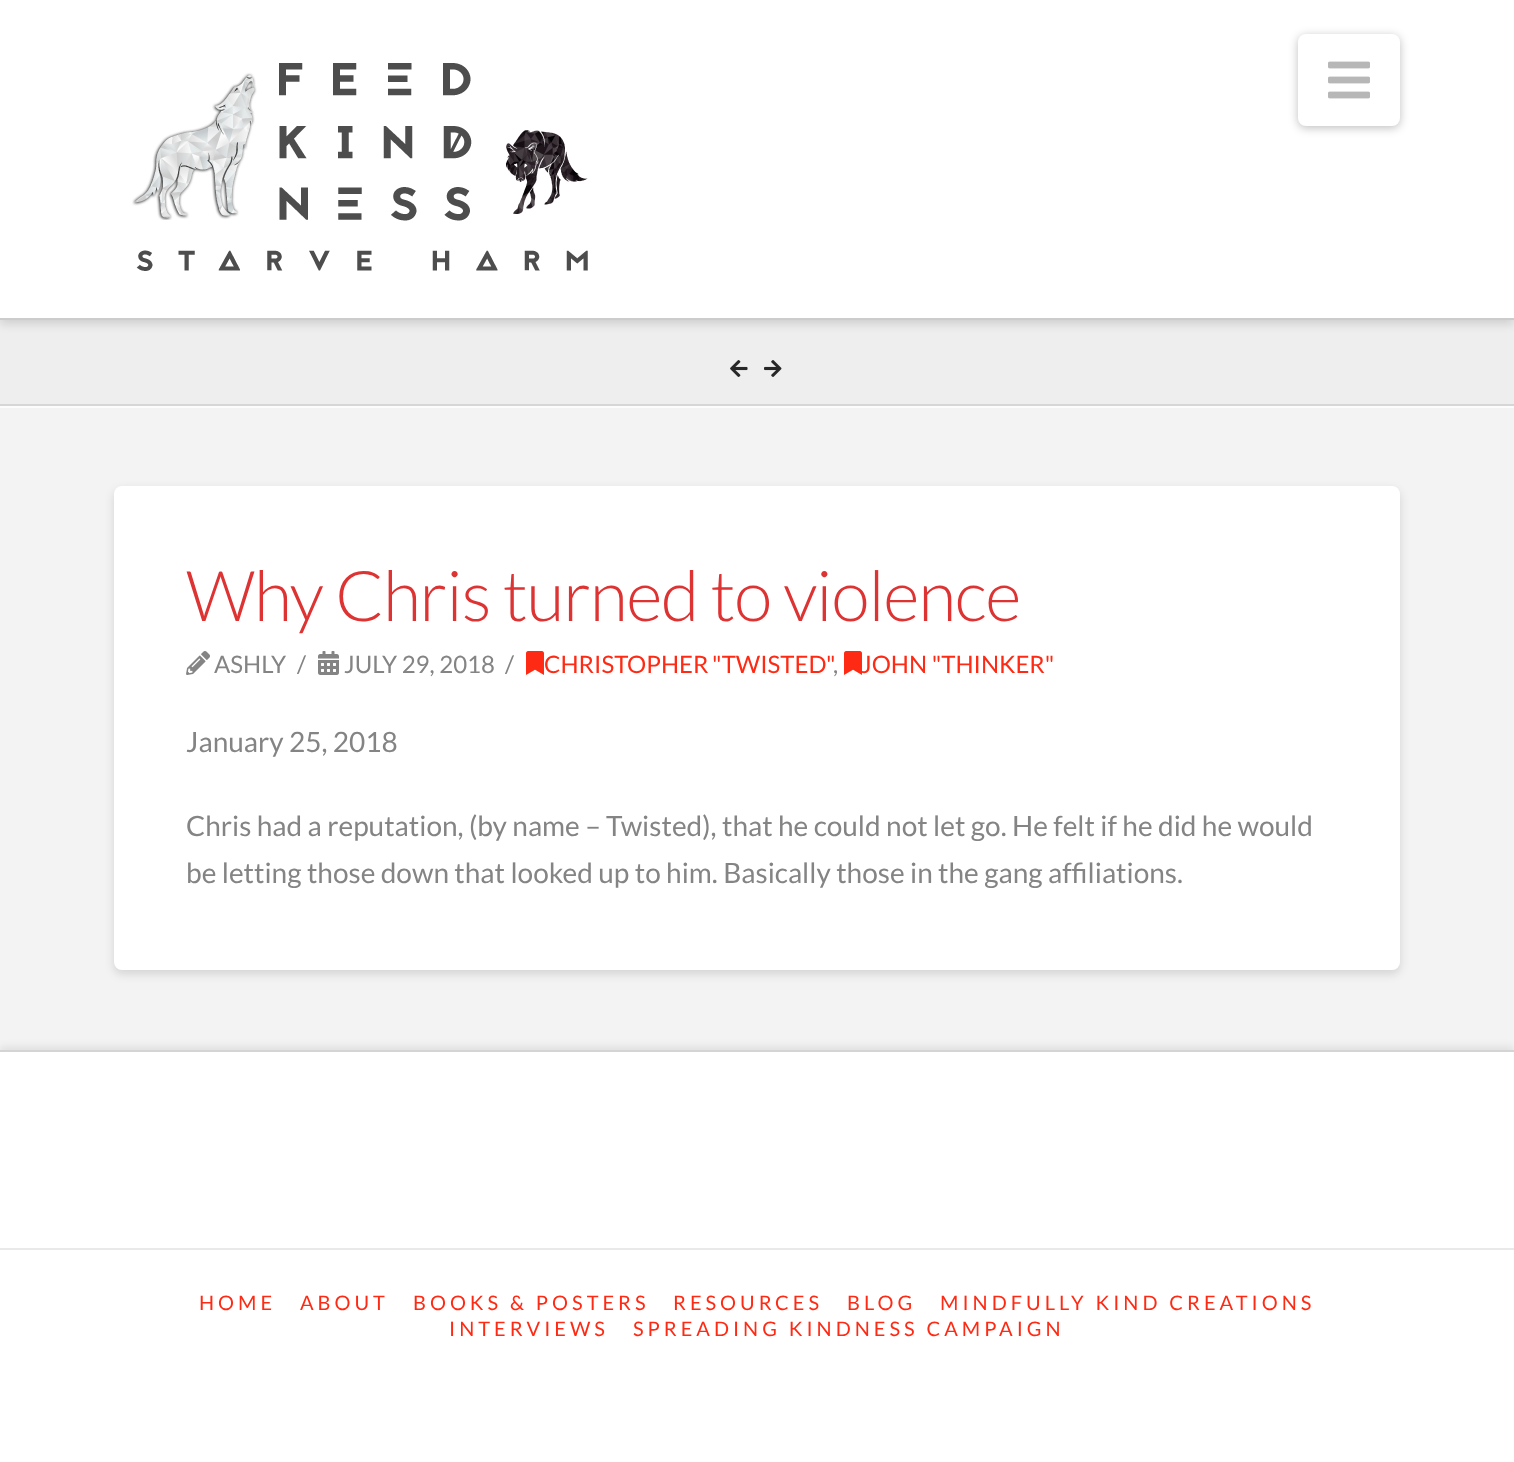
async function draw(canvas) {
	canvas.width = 1514;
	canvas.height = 1462;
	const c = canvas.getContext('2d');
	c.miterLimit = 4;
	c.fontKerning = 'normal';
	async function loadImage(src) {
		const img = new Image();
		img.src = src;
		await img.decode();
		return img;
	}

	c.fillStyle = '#f3f3f3';
	c.fillRect(0, 0, 1514, 1462);
	c.fillStyle = '#eee';
	c.fillRect(0, 320, 1514, 84);
	c.fillStyle = '#00000021';
	c.filter = 'blur(5px)';
	c.beginPath();
	c.rect(0, 0, 1514, 324);
	c.fill();
	c.filter = 'none';
	c.fillStyle = '#fff';
	c.fillRect(0, 0, 1514, 318);
	c.fillStyle = '#ccc';
	c.fillRect(0, 318, 1514, 2);
	c.drawImage(await loadImage('img1.png'), 132, 63, 456, 208);
	c.fillStyle = '#00000040';
	c.filter = 'blur(5px)';
	c.beginPath();
	c.roundRect(1298, 36, 102, 92, 8);
	c.fill();
	c.filter = 'none';
	c.fillStyle = '#fff';
	c.beginPath();
	c.roundRect(1298, 34, 102, 92, 8);
	c.fill();
	c.drawImage(await loadImage('img2.png'), 1328, 61, 42, 38);
	c.fillStyle = '#fcfcfc';
	c.fillRect(0, 406, 1514, 2);
	c.fillStyle = '#d6d6d6';
	c.fillRect(0, 404, 1514, 2);
	c.drawImage(await loadImage('img3.png'), 730, 360, 18, 17);
	c.drawImage(await loadImage('img4.png'), 764, 360, 18, 17);
	c.fillStyle = '#00000021';
	c.filter = 'blur(5px)';
	c.beginPath();
	c.roundRect(114, 490, 1286, 484, 8);
	c.fill();
	c.filter = 'none';
	c.fillStyle = '#fff';
	c.beginPath();
	c.roundRect(114, 486, 1286, 484, 8);
	c.fill();
	c.letterSpacing = '-1.2px';
	c.font = '300 70px Lato';
	c.fillStyle = '#d33';
	c.fillText('Why Chris turned to violence', 186, 621);
	c.drawImage(await loadImage('img5.png'), 186, 651, 24, 24);
	c.letterSpacing = '0px';
	c.font = '24px Lato';
	c.fillStyle = '#848484';
	c.fillText('ASHLY', 214, 673);
	c.fillText('/', 297, 673);
	c.drawImage(await loadImage('img6.png'), 318, 651, 21, 24);
	c.fillText('JULY 29, 2018', 344, 673);
	c.fillText('/', 505, 673);
	c.drawImage(await loadImage('img7.png'), 526, 651, 18, 24);
	c.wordSpacing = '-1px';
	c.fillStyle = '#ff2a13';
	c.fillText('CHRISTOPHER "TWISTED"', 544, 673);
	c.wordSpacing = '0px';
	c.fillStyle = '#848484';
	c.fillText(',', 833, 673);
	c.drawImage(await loadImage('img7.png'), 844, 651, 18, 24);
	c.fillStyle = '#ff2a13';
	c.fillText('JOHN "THINKER"', 861, 673);
	c.font = '28px Lato';
	c.fillStyle = '#848484';
	for (const [text, x, y] of [
		['January 25, 2018', 186, 752],
		['Chris had a reputation, (by name – Twisted), that he could not let go. He felt if he did he would', 186, 836],
		['be letting those down that looked up to him. Basically those in the gang affiliations.', 186, 883],
	]) {
		c.fillText(text, x, y);
	}
	c.fillStyle = '#00000012';
	c.filter = 'blur(3.5px)';
	c.beginPath();
	c.rect(0, 1046, 1514, 198);
	c.fill();
	c.filter = 'none';
	for (const [x, y, w, h, color] of [
		[0, 1052, 1514, 196, '#fff'],
		[0, 1050, 1514, 2, '#d4d4d4'],
		[0, 1250, 1514, 212, '#fff'],
		[0, 1248, 1514, 2, '#e9e9e9'],
	]) {
		c.fillStyle = color;
		c.fillRect(x, y, w, h);
	}
	c.letterSpacing = '4px';
	c.font = '20px Lato';
	c.fillStyle = '#ff2a13';
	for (const [text, x, y] of [
		['HOME', 199, 1310],
		['ABOUT', 300, 1310],
		['BOOKS & POSTERS', 413, 1310],
		['RESOURCES', 673, 1310],
		['BLOG', 847, 1310],
		['MINDFULLY KIND CREATIONS', 940, 1310],
		['INTERVIEWS', 449, 1336],
		['SPREADING KINDNESS CAMPAIGN', 633, 1336],
	]) {
		c.fillText(text, x, y);
	}
}

draw(document.querySelector('canvas'));
